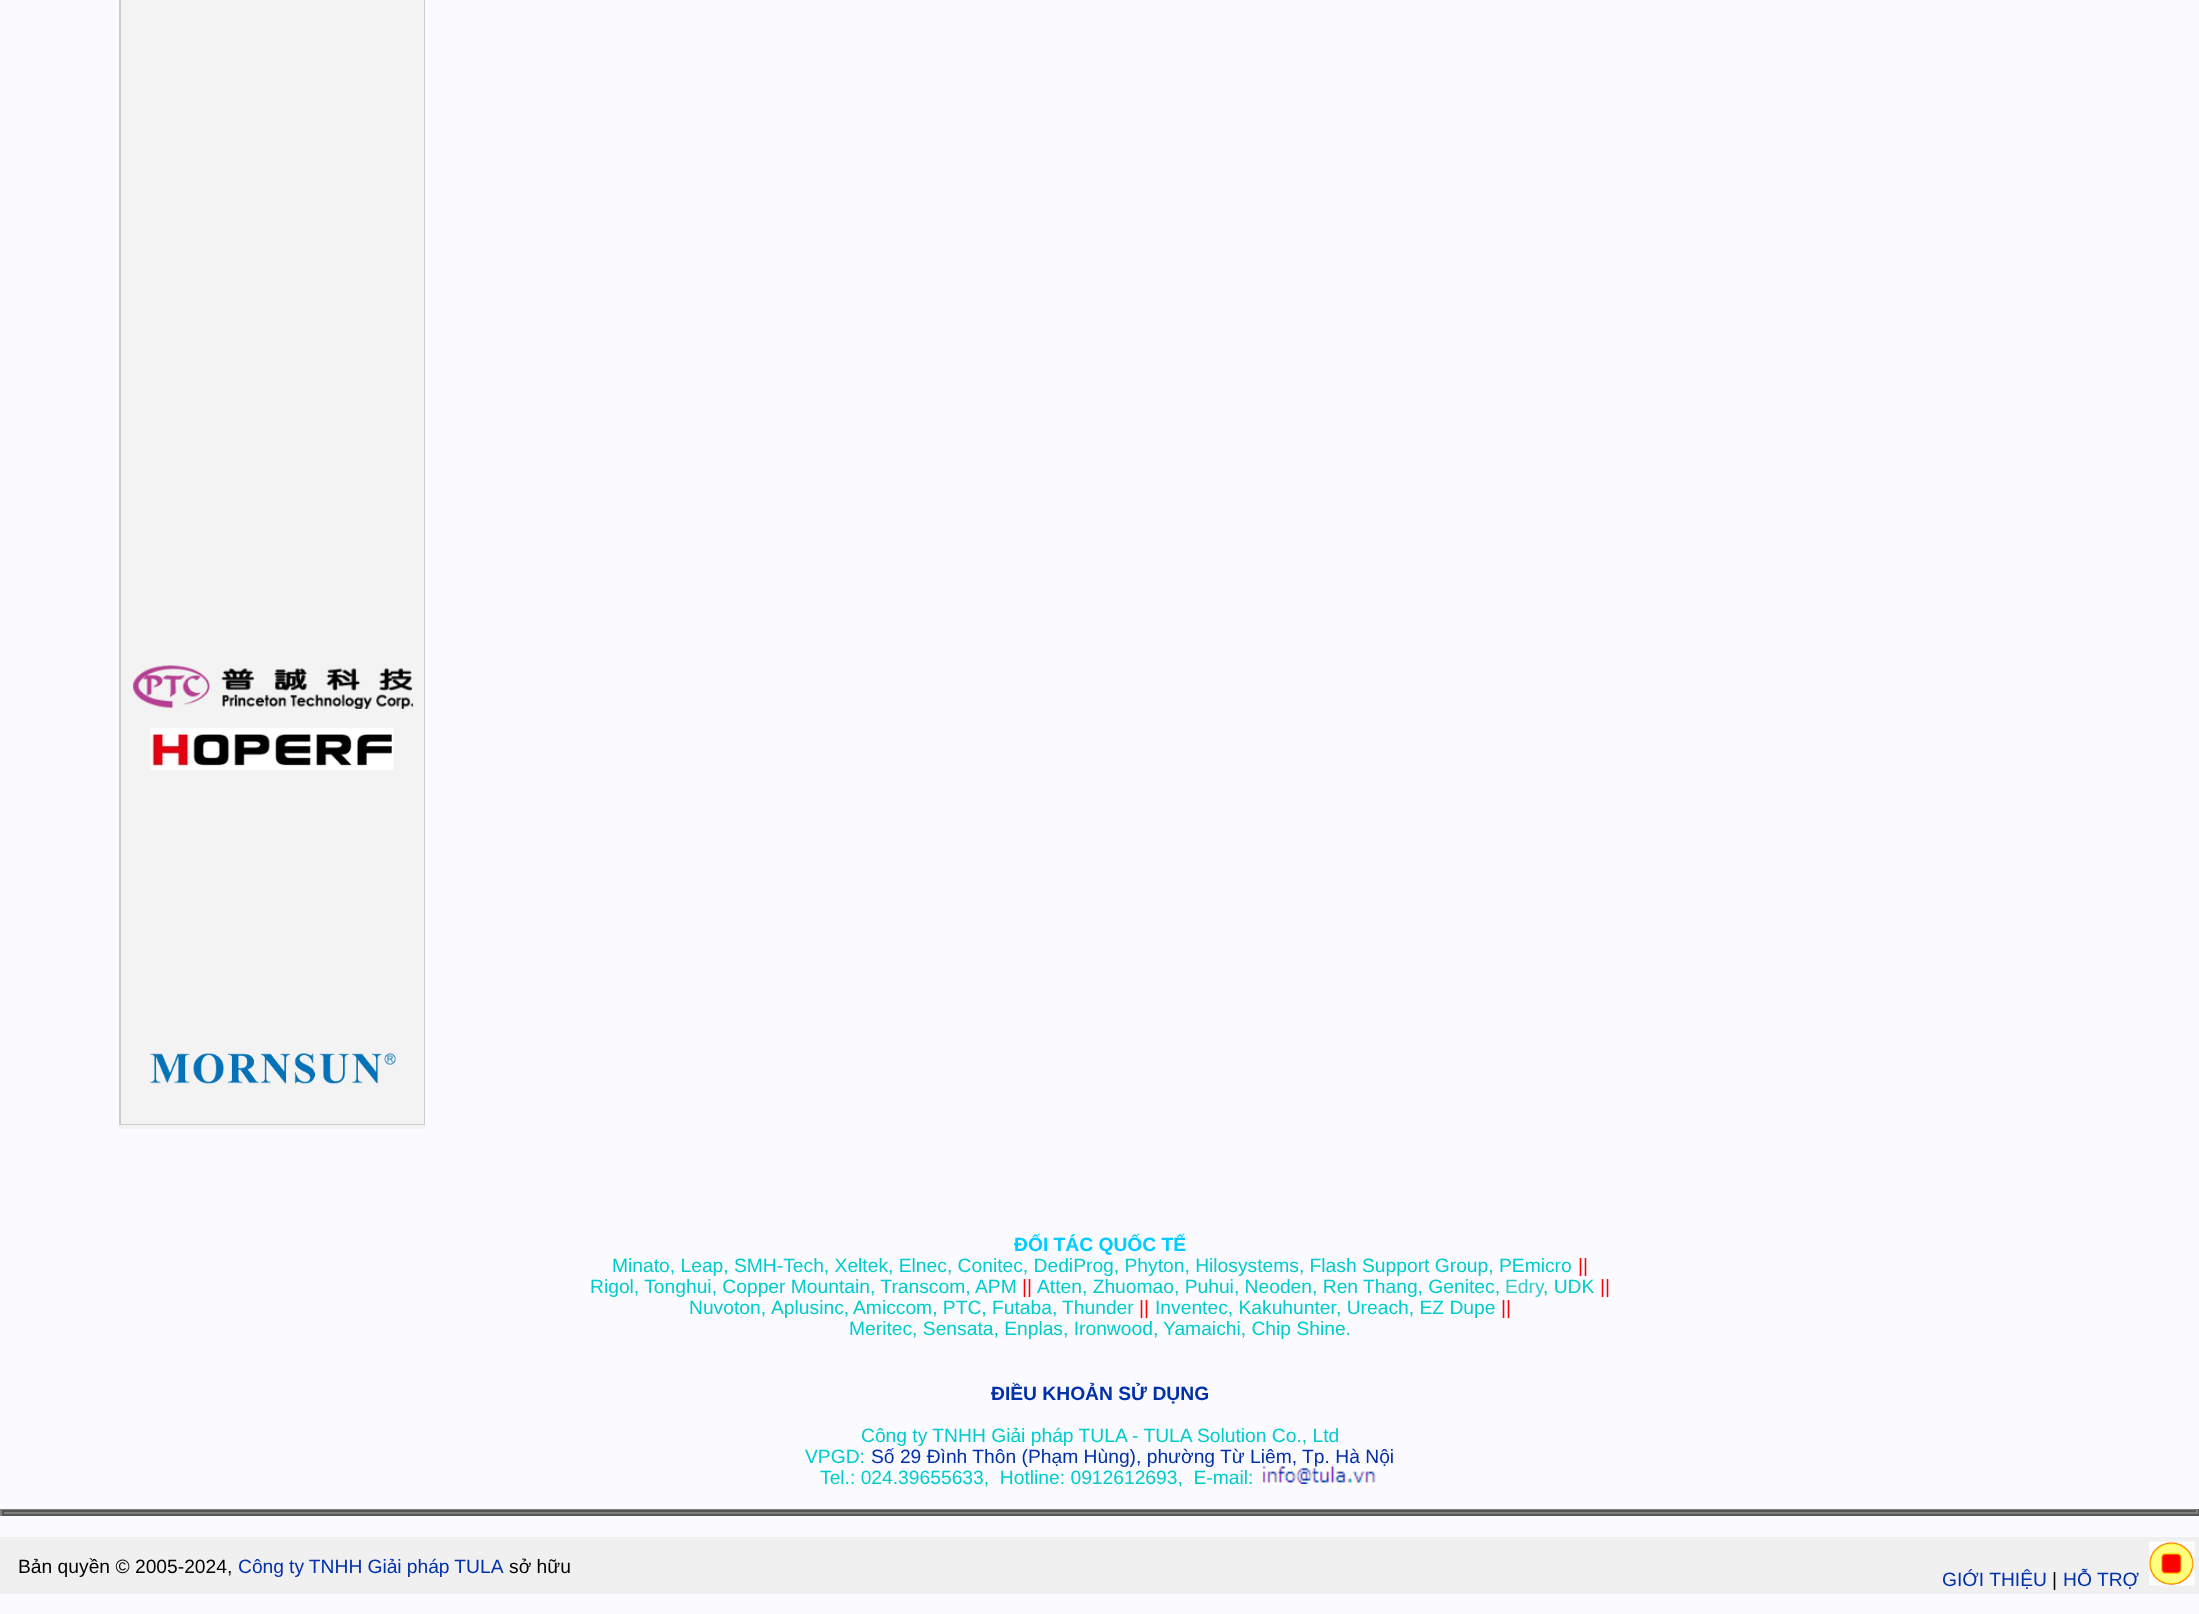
async function draw(canvas) {
	canvas.width = 2199;
	canvas.height = 1614;
	const c = canvas.getContext('2d');
	c.miterLimit = 4;
	c.fontKerning = 'normal';
	async function loadImage(src) {
		const img = new Image();
		img.src = src;
		await img.decode();
		return img;
	}

	c.fillStyle = '#fafaff';
	c.fillRect(0, 0, 2199, 1614);
	for (const [x, y, w, h, color] of [
		[119, 1125, 306, 4, '#f3f3f3'],
		[119, 0, 306, 1125, '#ccc'],
		[121, 0, 303, 1124, '#f3f3f3'],
	]) {
		c.fillStyle = color;
		c.fillRect(x, y, w, h);
	}
	c.drawImage(await loadImage('img1.png'), 133, 665, 280, 44);
	c.drawImage(await loadImage('img2.png'), 150, 728, 244, 42);
	c.drawImage(await loadImage('img3.png'), 150, 1053, 246, 31);
	c.font = 'bold 19.25px Liberation Sans';
	c.fillStyle = '#0cf';
	c.fillText('ĐỐI TÁC QUỐC TẾ', 1014, 1251);
	c.font = '19.25px Liberation Sans';
	c.fillStyle = '#0cc';
	c.fillText('Minato, Leap, SMH-Tech, Xeltek, Elnec, Conitec, DediProg, Phyton, Hilosystems, Flash Support Group, PEmicro', 612, 1272);
	c.fillStyle = '#f00';
	c.fillText('||', 1578, 1272);
	c.fillStyle = '#0cc';
	c.fillText('Rigol, Tonghui, Copper Mountain, Transcom,', 590, 1293);
	c.fillText('APM', 975, 1293);
	c.fillStyle = '#f00';
	c.fillText('||', 1022, 1293);
	c.fillStyle = '#0cc';
	c.fillText('Atten, Zhuomao, Puhui, Neoden, Ren Thang, Genitec,', 1037, 1293);
	c.fillStyle = '#3cc';
	c.fillText('Edry', 1505, 1293);
	c.fillStyle = '#0cc';
	c.fillText(', UDK', 1543, 1293);
	c.fillStyle = '#f00';
	c.fillText('||', 1600, 1293);
	c.fillStyle = '#0cc';
	for (const [text, x, y] of [
		['Nuvoton,', 689, 1314],
		['Aplusinc,', 771, 1314],
		['Amiccom, PTC, Futaba,', 853, 1314],
		['Thunder', 1062, 1314],
	]) {
		c.fillText(text, x, y);
	}
	c.fillStyle = '#f00';
	c.fillText('||', 1139, 1314);
	c.fillStyle = '#0cc';
	c.fillText('Inventec, Kakuhunter', 1155, 1314);
	c.fillText(', Ureach, EZ Dupe', 1336, 1314);
	c.fillStyle = '#f00';
	c.fillText('||', 1501, 1314);
	c.fillStyle = '#0cc';
	c.fillText('Meritec, Sensata, Enplas, Ironwood,', 849, 1335);
	c.fillText('Yamaichi, Chip Shine.', 1163, 1335);
	c.font = 'bold 19.25px Liberation Sans';
	c.fillStyle = '#0030aa';
	c.fillText('ĐIỀU KHOẢN SỬ DỤNG', 991, 1400);
	c.font = '19.25px Liberation Sans';
	c.fillStyle = '#0cc';
	c.fillText('Công ty TNHH Giải pháp TULA - TULA Solution Co., Ltd', 861, 1442);
	c.fillText('VPGD:', 805, 1463);
	c.fillStyle = '#0030aa';
	c.fillText('Số 29 Đình Thôn (Phạm Hùng), phường Từ Liêm, Tp. Hà Nội', 871, 1463);
	c.fillStyle = '#0cc';
	c.fillText('Tel.: 024.39655633,  Hotline: 0912612693,  E-mail:', 820, 1484);
	c.drawImage(await loadImage('img4.png'), 1261, 1466, 115, 18);
	for (const [x, y, w, h, color] of [
		[0, 1509, 2199, 1, '#808080'],
		[2198, 1509, 1, 7, '#555'],
		[0, 1514, 2199, 2, '#555'],
		[0, 1509, 2, 7, '#808080'],
		[2, 1510, 2196, 2, '#555'],
		[2196, 1510, 2, 4, '#808080'],
		[2, 1512, 2196, 2, '#808080'],
		[2, 1510, 2, 4, '#555'],
		[0, 1537, 2199, 57, '#f0f0f0'],
	]) {
		c.fillStyle = color;
		c.fillRect(x, y, w, h);
	}
	c.fillStyle = '#000';
	c.fillText('Bản quyền © 2005-2024,', 18, 1573);
	c.wordSpacing = '-0.25px';
	c.fillStyle = '#0030aa';
	c.fillText('Công ty TNHH Giải pháp TULA', 238, 1573);
	c.wordSpacing = '0px';
	c.fillStyle = '#000';
	c.fillText('sở hữu', 509, 1573);
	c.fillStyle = '#0030aa';
	c.fillText('GIỚI THIỆU', 1942, 1586);
	c.fillStyle = '#000';
	c.fillText('|', 2052, 1586);
	c.fillStyle = '#0030aa';
	c.fillText('HỖ TRỢ', 2063, 1586);
	c.drawImage(await loadImage('img5.png'), 2149, 1541, 46, 45);
}

draw(document.querySelector('canvas'));
